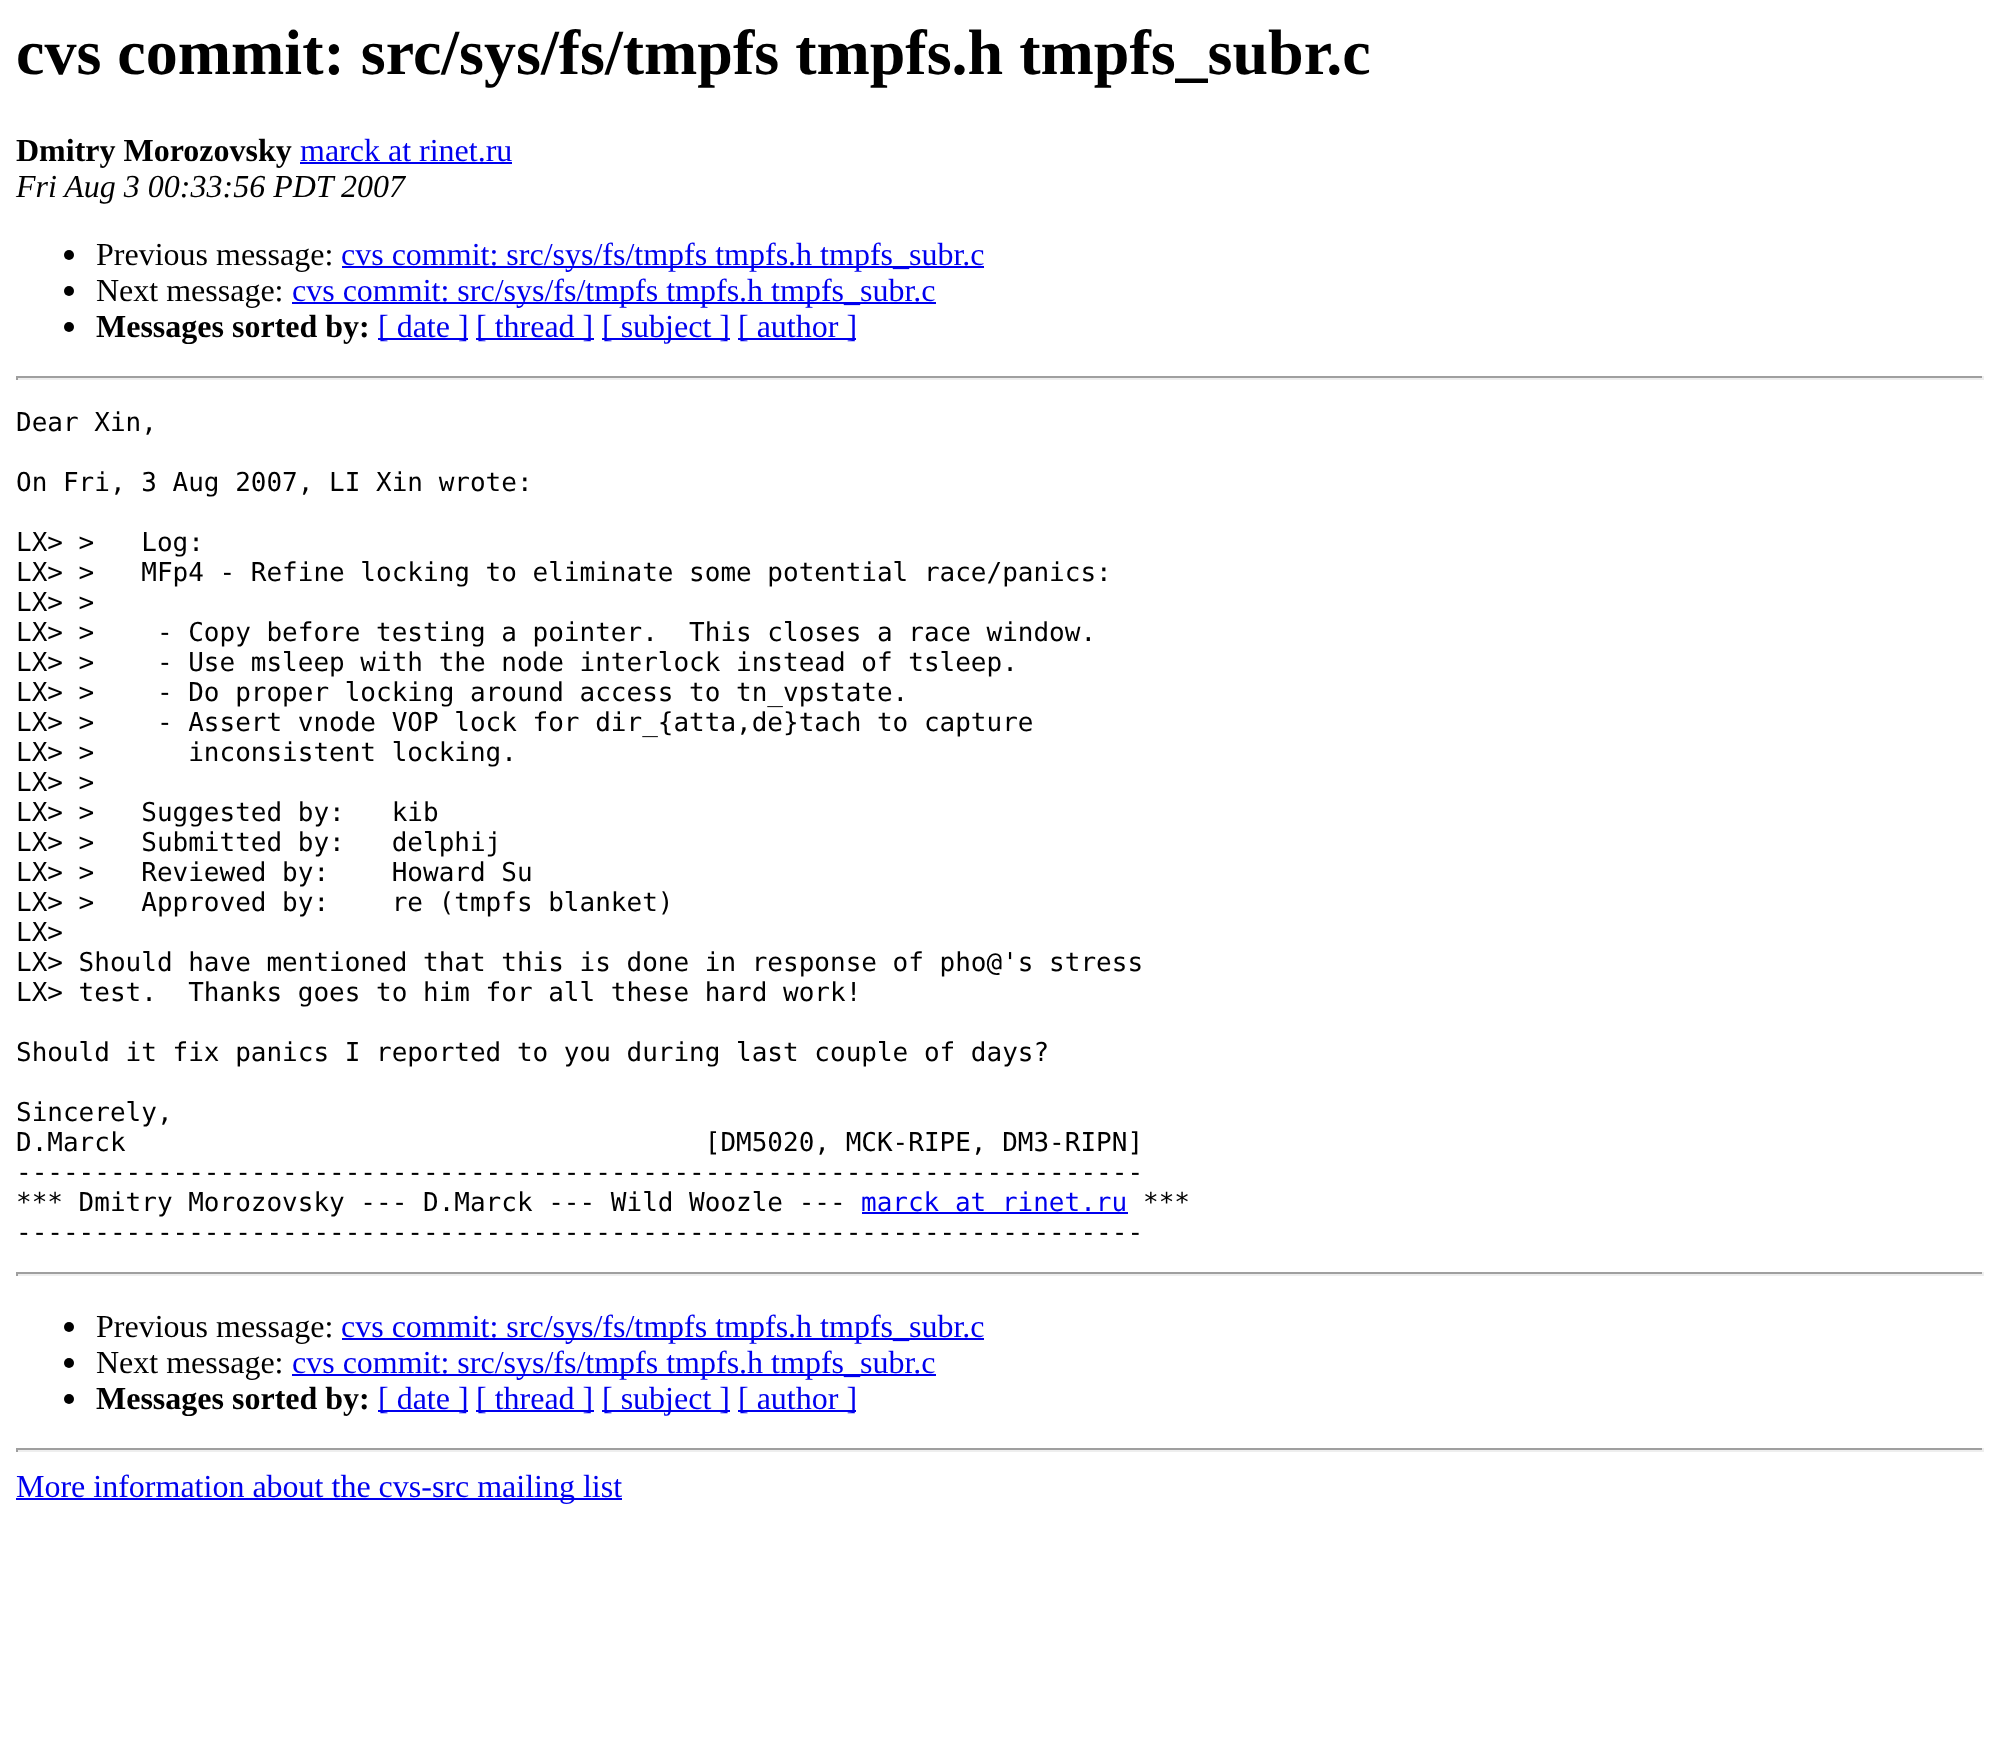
async function draw(canvas) {
	canvas.width = 1999;
	canvas.height = 1751;
	const c = canvas.getContext('2d');
	c.miterLimit = 4;
	c.fontKerning = 'normal';

	c.fillStyle = '#fff';
	c.fillRect(0, 0, 1999, 1751);
	c.font = 'bold 64px Liberation Serif';
	c.fillStyle = '#000';
	c.fillText('cvs commit: src/sys/fs/tmpfs tmpfs.h tmpfs_subr.c', 16, 74);
	c.font = 'bold 32px Liberation Serif';
	c.fillText('Dmitry Morozovsky', 16, 161);
	c.font = '32px Liberation Serif';
	c.fillStyle = '#00e';
	c.fillText('marck at rinet.ru', 300, 161);
	c.fillRect(300, 162, 212, 2);
	c.font = 'italic 32px Liberation Serif';
	c.fillStyle = '#000';
	c.fillText('Fri Aug 3 00:33:56 PDT 2007', 16, 197);
	c.beginPath();
	c.arc(69, 255, 5, 0, 2 * Math.PI);
	c.fill();
	c.font = '32px Liberation Serif';
	c.fillText('Previous message:', 96, 265);
	c.fillStyle = '#00e';
	c.fillRect(342, 266, 642, 2);
	c.fillText('cvs commit: src/sys/fs/tmpfs tmpfs.h tmpfs_subr.c', 341, 265);
	c.fillStyle = '#000';
	c.beginPath();
	c.arc(69, 291, 5, 0, 2 * Math.PI);
	c.fill();
	c.fillText('Next message:', 96, 301);
	c.fillStyle = '#00e';
	c.fillRect(292, 302, 644, 2);
	c.fillText('cvs commit: src/sys/fs/tmpfs tmpfs.h tmpfs_subr.c', 292, 301);
	c.fillStyle = '#000';
	c.beginPath();
	c.arc(69, 327, 5, 0, 2 * Math.PI);
	c.fill();
	c.font = 'bold 32px Liberation Serif';
	c.fillText('Messages sorted by:', 96, 337);
	c.fillStyle = '#00e';
	c.fillRect(378, 338, 90, 2);
	c.font = '32px Liberation Serif';
	c.fillText('[ date ]', 378, 337);
	c.fillRect(476, 338, 118, 2);
	c.fillText('[ thread ]', 476, 337);
	c.fillRect(602, 338, 128, 2);
	c.fillText('[ subject ]', 602, 337);
	c.fillRect(738, 338, 118, 2);
	c.fillText('[ author ]', 738, 337);
	for (const [x, y, w, h, color] of [
		[16, 376, 1968, 2, '#9f9f9f'],
		[1982, 376, 2, 4, '#eee'],
		[16, 378, 1968, 2, '#eee'],
		[16, 376, 2, 4, '#9f9f9f'],
	]) {
		c.fillStyle = color;
		c.fillRect(x, y, w, h);
	}
	c.font = '26px DejaVu Sans Mono';
	c.fillStyle = '#000';
	for (const [text, x, y] of [
		['Dear Xin,', 16, 431],
		['On Fri, 3 Aug 2007, LI Xin wrote:', 16, 491],
		['LX> >   Log:', 16, 551],
		['LX> >   MFp4 - Refine locking to eliminate some potential race/panics:', 16, 581],
		['LX> >', 16, 611],
		['LX> >    - Copy before testing a pointer.  This closes a race window.', 16, 641],
		['LX> >    - Use msleep with the node interlock instead of tsleep.', 16, 671],
		['LX> >    - Do proper locking around access to tn_vpstate.', 16, 701],
		['LX> >    - Assert vnode VOP lock for dir_{atta,de}tach to capture', 16, 731],
		['LX> >      inconsistent locking.', 16, 761],
		['LX> >', 16, 791],
		['LX> >   Suggested by:   kib', 16, 821],
		['LX> >   Submitted by:   delphij', 16, 851],
		['LX> >   Reviewed by:    Howard Su', 16, 881],
		['LX> >   Approved by:    re (tmpfs blanket)', 16, 911],
		['LX>', 16, 941],
		['LX> Should have mentioned that this is done in response of pho@\'s stress', 16, 971],
		['LX> test.  Thanks goes to him for all these hard work!', 16, 1001],
		['Should it fix panics I reported to you during last couple of days?', 16, 1061],
		['Sincerely,', 16, 1121],
		['D.Marck                                     [DM5020, MCK-RIPE, DM3-RIPN]', 16, 1151],
		['------------------------------------------------------------------------', 16, 1181],
		['*** Dmitry Morozovsky --- D.Marck --- Wild Woozle ---', 16, 1211],
	]) {
		c.fillText(text, x, y);
	}
	c.fillStyle = '#00e';
	c.fillText('marck at rinet.ru', 861, 1211);
	c.fillRect(862, 1212, 266, 2);
	c.fillStyle = '#000';
	c.fillText('***', 1143, 1211);
	c.fillText('------------------------------------------------------------------------', 16, 1241);
	for (const [x, y, w, h, color] of [
		[16, 1272, 1968, 2, '#9f9f9f'],
		[1982, 1272, 2, 4, '#eee'],
		[16, 1274, 1968, 2, '#eee'],
		[16, 1272, 2, 4, '#9f9f9f'],
	]) {
		c.fillStyle = color;
		c.fillRect(x, y, w, h);
	}
	c.fillStyle = '#000';
	c.beginPath();
	c.arc(69, 1327, 5, 0, 2 * Math.PI);
	c.fill();
	c.font = '32px Liberation Serif';
	c.fillText('Previous message:', 96, 1337);
	c.fillStyle = '#00e';
	c.fillRect(342, 1338, 642, 2);
	c.fillText('cvs commit: src/sys/fs/tmpfs tmpfs.h tmpfs_subr.c', 341, 1337);
	c.fillStyle = '#000';
	c.beginPath();
	c.arc(69, 1363, 5, 0, 2 * Math.PI);
	c.fill();
	c.fillText('Next message:', 96, 1373);
	c.fillStyle = '#00e';
	c.fillRect(292, 1374, 644, 2);
	c.fillText('cvs commit: src/sys/fs/tmpfs tmpfs.h tmpfs_subr.c', 292, 1373);
	c.fillStyle = '#000';
	c.beginPath();
	c.arc(69, 1399, 5, 0, 2 * Math.PI);
	c.fill();
	c.font = 'bold 32px Liberation Serif';
	c.fillText('Messages sorted by:', 96, 1409);
	c.fillStyle = '#00e';
	c.fillRect(378, 1410, 90, 2);
	c.font = '32px Liberation Serif';
	c.fillText('[ date ]', 378, 1409);
	c.fillRect(476, 1410, 118, 2);
	c.fillText('[ thread ]', 476, 1409);
	c.fillRect(602, 1410, 128, 2);
	c.fillText('[ subject ]', 602, 1409);
	c.fillRect(738, 1410, 118, 2);
	c.fillText('[ author ]', 738, 1409);
	for (const [x, y, w, h, color] of [
		[16, 1448, 1968, 2, '#9f9f9f'],
		[1982, 1448, 2, 4, '#eee'],
		[16, 1450, 1968, 2, '#eee'],
		[16, 1448, 2, 4, '#9f9f9f'],
		[16, 1498, 606, 2, '#00e'],
	]) {
		c.fillStyle = color;
		c.fillRect(x, y, w, h);
	}
	c.fillText('More information about the cvs-src mailing list', 16, 1497);
}

draw(document.querySelector('canvas'));
